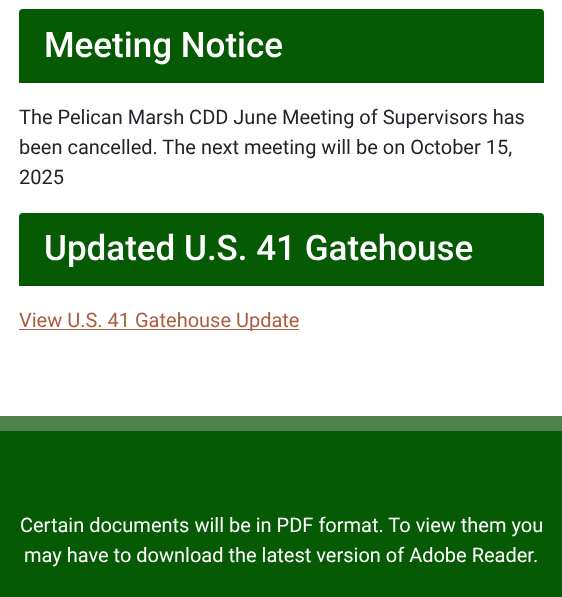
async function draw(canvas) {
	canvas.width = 562;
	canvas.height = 597;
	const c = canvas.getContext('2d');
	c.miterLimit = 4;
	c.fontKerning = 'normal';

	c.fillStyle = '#fff';
	c.fillRect(0, 0, 562, 597);
	c.fillStyle = '#065a04';
	c.beginPath();
	c.roundRect(19, 9, 525, 74, [4, 4, 0, 0]);
	c.fill();
	c.fillStyle = '#054f04';
	c.fillRect(19, 81, 525, 1);
	c.font = '500 35px Roboto';
	c.fillStyle = '#fff';
	c.fillText('Meeting Notice', 44, 57);
	c.font = '20px Roboto';
	c.fillStyle = '#212529';
	for (const [text, x, y] of [
		['The Pelican Marsh CDD June Meeting of Supervisors has', 19, 124],
		['been cancelled. The next meeting will be on October 15,', 19, 154],
		['2025', 19, 184],
	]) {
		c.fillText(text, x, y);
	}
	c.fillStyle = '#065a04';
	c.beginPath();
	c.roundRect(19, 213, 525, 73, [4, 4, 0, 0]);
	c.fill();
	c.fillStyle = '#054f04';
	c.fillRect(19, 285, 525, 1);
	c.font = '500 35px Roboto';
	c.fillStyle = '#fff';
	c.fillText('Updated U.S. 41 Gatehouse', 44, 260);
	c.fillStyle = '#a95e42';
	c.fillRect(19, 329, 280, 1);
	c.font = '20px Roboto';
	c.fillText('View U.S. 41 Gatehouse Update', 19, 327);
	c.fillStyle = '#065a04';
	c.fillRect(0, 431, 562, 166);
	c.fillStyle = '#4d824b';
	c.fillRect(0, 416, 562, 15);
	c.fillStyle = '#fff';
	c.fillText('Certain documents will be in PDF format. To view them you', 20, 532);
	c.fillText('may have to download the latest version of Adobe Reader.', 24, 562);
}

draw(document.querySelector('canvas'));
